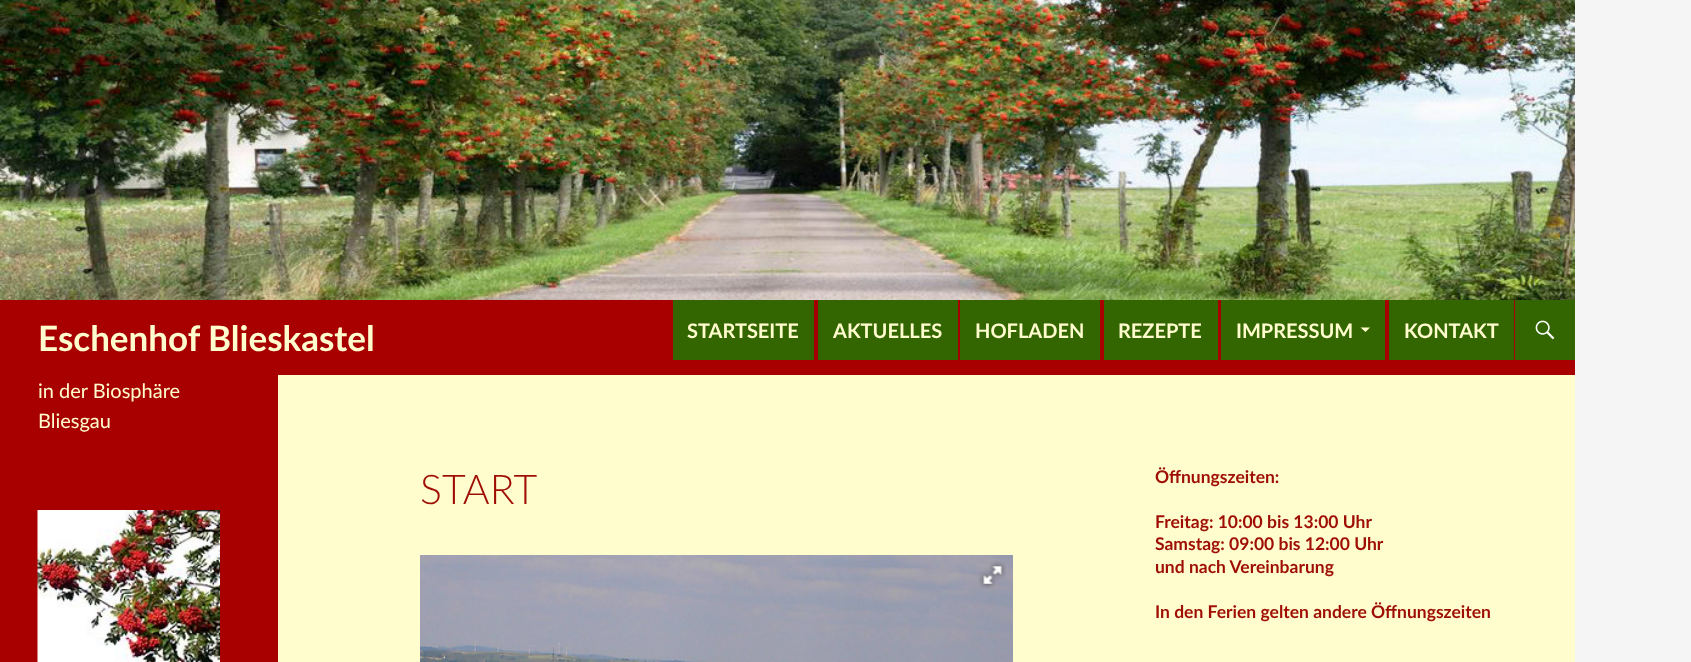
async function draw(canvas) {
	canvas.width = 1691;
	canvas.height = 662;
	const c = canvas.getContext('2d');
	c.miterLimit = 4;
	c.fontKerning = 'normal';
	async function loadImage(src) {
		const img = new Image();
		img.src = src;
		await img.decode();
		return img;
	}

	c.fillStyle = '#f5f5f5';
	c.fillRect(0, 0, 1691, 662);
	c.fillStyle = '#fffcce';
	c.fillRect(278, 375, 1297, 287);
	c.drawImage(await loadImage('img1.png'), 0, 0, 1575, 300);
	c.fillStyle = '#a80000';
	c.fillRect(0, 300, 1575, 75);
	c.font = 'bold 35px Lato';
	c.fillStyle = '#fffcce';
	c.fillText('Eschenhof Blieskastel', 38, 351);
	c.fillStyle = '#360';
	c.fillRect(673, 300, 141, 60);
	c.font = 'bold 20px Lato';
	c.fillStyle = '#fffcce';
	c.fillText('STARTSEITE', 687, 338);
	c.fillStyle = '#360';
	c.fillRect(818, 300, 140, 60);
	c.fillStyle = '#fffcce';
	c.fillText('AKTUELLES', 833, 338);
	c.fillStyle = '#360';
	c.fillRect(960, 300, 140, 60);
	c.fillStyle = '#fffcce';
	c.fillText('HOFLADEN', 975, 338);
	c.fillStyle = '#360';
	c.fillRect(1104, 300, 114, 60);
	c.fillStyle = '#fffcce';
	c.fillText('REZEPTE', 1118, 338);
	c.fillStyle = '#360';
	c.fillRect(1221, 300, 164, 60);
	c.fillStyle = '#fffcce';
	c.fillText('IMPRESSUM', 1236, 338);
	c.beginPath();
	c.moveTo(1360.5, 327.5);
	c.lineTo(1365.5, 332);
	c.lineTo(1370, 327.5);
	c.closePath();
	c.fill();
	c.fillStyle = '#360';
	c.fillRect(1389, 300, 125, 60);
	c.fillStyle = '#fffcce';
	c.fillText('KONTAKT', 1404, 338);
	c.fillStyle = '#360';
	c.fillRect(1515, 300, 60, 60);
	c.drawImage(await loadImage('img2.png'), 1535, 320, 20, 20);
	c.fillStyle = '#a80000';
	c.fillRect(0, 375, 278, 287);
	c.font = '20px Lato';
	c.fillStyle = '#fffcce';
	c.fillText('in der Biosphäre', 38, 398);
	c.fillText('Bliesgau', 38, 428);
	c.drawImage(await loadImage('img3.png'), 37, 510, 183, 152);
	c.font = '300 41px Lato';
	c.fillStyle = '#9e0e04';
	c.fillText('START', 420, 504);
	c.drawImage(await loadImage('img4.png'), 420, 555, 593, 107);
	c.drawImage(await loadImage('img5.png'), 978, 561, 28, 28);
	c.font = 'bold 17.5px Lato';
	for (const [text, x, y] of [
		['Öffnungszeiten:', 1155, 483],
		['Freitag: 10:00 bis 13:00 Uhr', 1155, 528],
		['Samstag: 09:00 bis 12:00 Uhr', 1155, 550],
		['und nach Vereinbarung', 1155, 573],
		['In den Ferien gelten andere Öffnungszeiten', 1155, 618],
	]) {
		c.fillText(text, x, y);
	}
}

draw(document.querySelector('canvas'));
